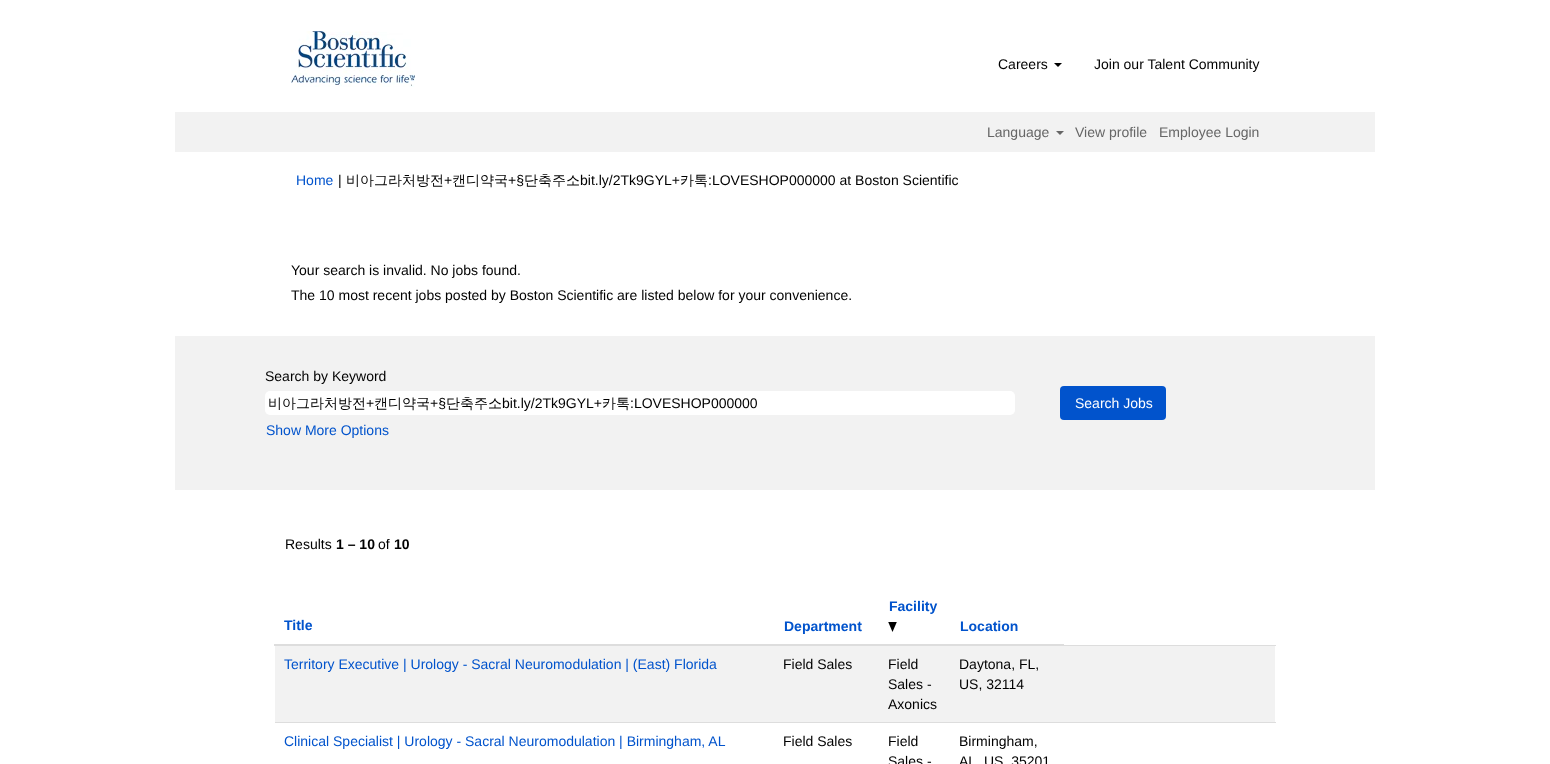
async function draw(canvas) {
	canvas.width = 1550;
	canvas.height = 764;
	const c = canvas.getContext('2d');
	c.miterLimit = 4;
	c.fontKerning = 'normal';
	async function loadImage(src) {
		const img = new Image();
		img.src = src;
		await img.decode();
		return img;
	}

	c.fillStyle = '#fff';
	c.fillRect(0, 0, 1550, 764);
	c.drawImage(await loadImage('img1.png'), 291, 31, 124, 56);
	c.font = '14px Liberation Sans';
	c.fillStyle = '#000';
	c.fillText('Careers', 998, 69);
	c.beginPath();
	c.moveTo(1054, 63);
	c.lineTo(1062, 63);
	c.lineTo(1058, 67);
	c.closePath();
	c.fill();
	c.fillText('Join our Talent Community', 1094, 69);
	c.fillStyle = '#f2f2f2';
	c.fillRect(175, 112, 1200, 40);
	c.fillStyle = '#666';
	c.fillText('Language', 987, 137);
	c.beginPath();
	c.moveTo(1056, 131);
	c.lineTo(1064, 131);
	c.lineTo(1060, 135);
	c.closePath();
	c.fill();
	c.fillText('View profile', 1075, 137);
	c.fillText('Employee Login', 1159, 137);
	c.fillStyle = '#0153cc';
	c.fillText('Home', 296, 185);
	c.fillStyle = '#000';
	c.fillText('|', 338, 185);
	c.font = '500 14px WenQuanYi Zen Hei';
	c.fillText('비아그라처방전', 346, 185);
	c.font = '14px Liberation Sans';
	c.fillText('+', 444, 185);
	c.font = '500 14px WenQuanYi Zen Hei';
	c.fillText('캔디약국', 452, 185);
	c.font = '14px Liberation Sans';
	c.fillText('+§', 508, 185);
	c.font = '500 14px WenQuanYi Zen Hei';
	c.fillText('단축주소', 524, 185);
	c.font = '14px Liberation Sans';
	c.fillText('bit.ly/2Tk9GYL+', 580, 185);
	c.font = '500 14px WenQuanYi Zen Hei';
	c.fillText('카톡', 680, 185);
	c.font = '14px Liberation Sans';
	for (const [text, x, y] of [
		[':LOVESHOP000000 at Boston Scientific', 708, 185],
		['Your search is invalid. No jobs found.', 291, 275],
		['The 10 most recent jobs posted by Boston Scientific are listed below for your convenience.', 291, 300],
	]) {
		c.fillText(text, x, y);
	}
	c.fillStyle = '#f2f2f2';
	c.fillRect(175, 336, 1200, 154);
	c.fillStyle = '#000';
	c.fillText('Search by Keyword', 265, 381);
	c.fillStyle = '#fff';
	c.beginPath();
	c.roundRect(265, 391, 750, 24, 5);
	c.fill();
	c.font = '500 14px WenQuanYi Zen Hei';
	c.fillStyle = '#000';
	c.fillText('비아그라처방전', 268, 408);
	c.font = '14px Liberation Sans';
	c.fillText('+', 366, 408);
	c.font = '500 14px WenQuanYi Zen Hei';
	c.fillText('캔디약국', 374, 408);
	c.font = '14px Liberation Sans';
	c.fillText('+§', 430, 408);
	c.font = '500 14px WenQuanYi Zen Hei';
	c.fillText('단축주소', 446, 408);
	c.font = '14px Liberation Sans';
	c.fillText('bit.ly/2Tk9GYL+', 502, 408);
	c.font = '500 14px WenQuanYi Zen Hei';
	c.fillText('카톡', 602, 408);
	c.font = '14px Liberation Sans';
	c.fillText(':LOVESHOP000000', 630, 408);
	c.fillStyle = '#0153cc';
	c.fillText('Show More Options', 266, 435);
	c.beginPath();
	c.roundRect(1060, 386, 106, 34, 4);
	c.fill();
	c.fillStyle = '#fff';
	c.fillText('Search Jobs', 1075, 408);
	c.fillStyle = '#000';
	c.fillText('Results', 285, 549);
	c.font = 'bold 14px Liberation Sans';
	c.fillText('1 – 10', 336, 549);
	c.font = '14px Liberation Sans';
	c.fillText('of', 378, 549);
	c.font = 'bold 14px Liberation Sans';
	c.fillText('10', 394, 549);
	c.fillStyle = '#0153cc';
	c.fillText('Facility', 889, 611);
	c.drawImage(await loadImage('img2.png'), 888, 622, 9, 10);
	c.fillText('Title', 284, 630);
	c.fillText('Department', 784, 631);
	c.fillStyle = '#ddd';
	c.fillRect(1063, 645, 213, 1);
	c.fillRect(274, 644, 790, 2);
	c.fillStyle = '#0153cc';
	c.fillText('Location', 960, 631);
	c.fillStyle = '#f2f2f2';
	c.fillRect(275, 646, 1000, 76);
	c.font = '14px Liberation Sans';
	c.fillStyle = '#0153cc';
	c.fillText('Territory Executive | Urology - Sacral Neuromodulation | (East) Florida', 284, 669);
	c.fillStyle = '#000';
	for (const [text, x, y] of [
		['Field Sales', 783, 669],
		['Field', 888, 669],
		['Sales -', 888, 689],
		['Axonics', 888, 709],
		['Daytona, FL,', 959, 669],
		['US, 32114', 959, 689],
	]) {
		c.fillText(text, x, y);
	}
	c.fillStyle = '#ddd';
	c.fillRect(275, 722, 1001, 1);
	c.fillStyle = '#0153cc';
	c.fillText('Clinical Specialist | Urology - Sacral Neuromodulation | Birmingham, AL', 284, 746);
	c.fillStyle = '#000';
	for (const [text, x, y] of [
		['Field Sales', 783, 746],
		['Field', 888, 746],
		['Sales -', 888, 766],
		['Birmingham,', 959, 746],
		['AL, US, 35201', 959, 766],
	]) {
		c.fillText(text, x, y);
	}
}

draw(document.querySelector('canvas'));
